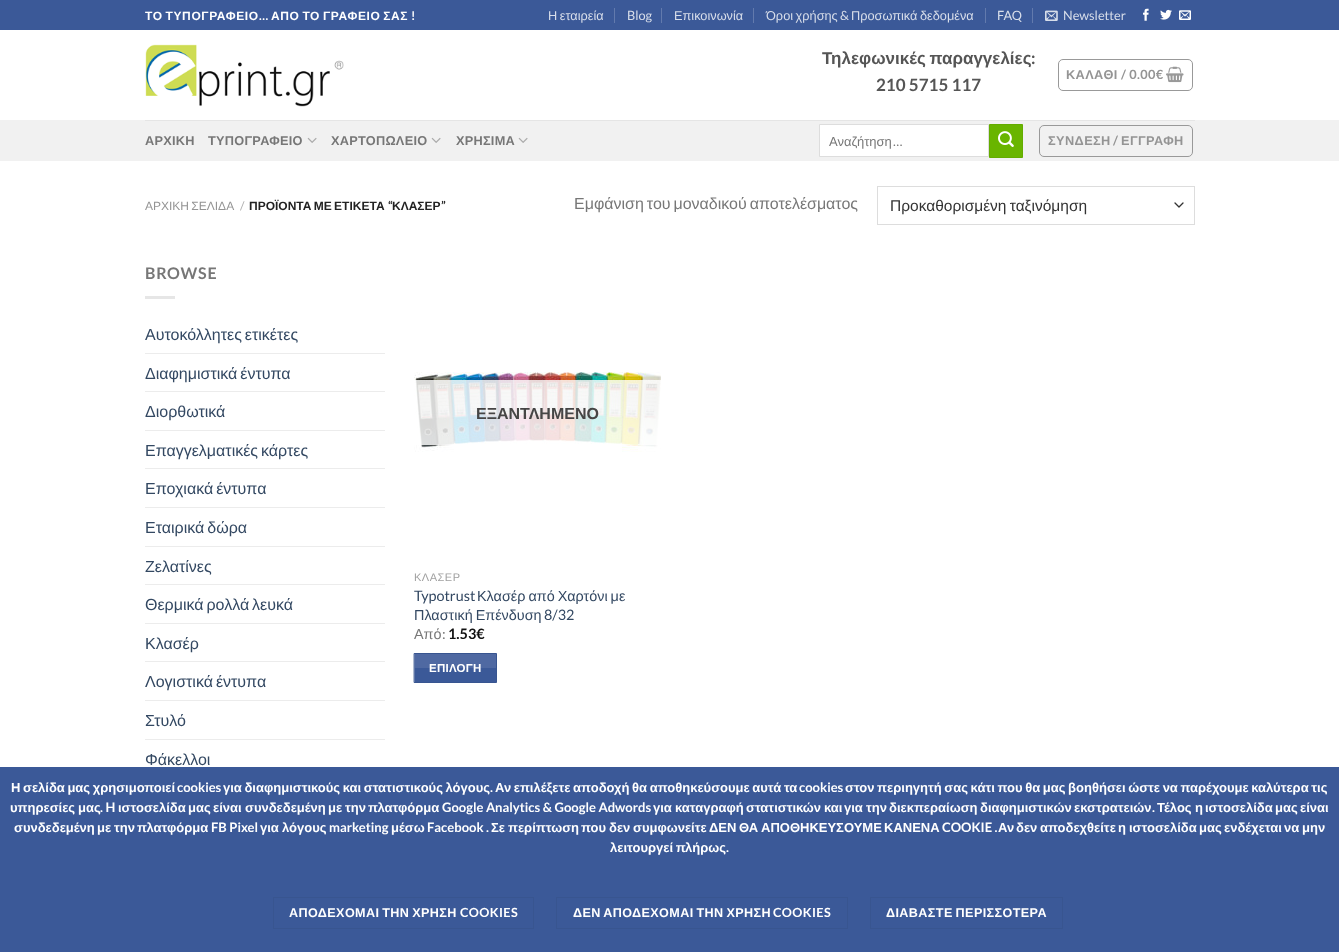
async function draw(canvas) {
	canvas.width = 1339;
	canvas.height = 952;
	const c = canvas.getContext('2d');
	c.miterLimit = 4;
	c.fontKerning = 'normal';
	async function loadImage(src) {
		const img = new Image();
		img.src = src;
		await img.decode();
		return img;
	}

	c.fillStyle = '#fff';
	c.fillRect(0, 0, 1339, 952);
	c.fillStyle = '#3b5998';
	c.fillRect(0, 0, 1339, 30);
	c.letterSpacing = '0.6px';
	c.wordSpacing = '-1px';
	c.font = 'bold 12px Liberation Sans';
	c.fillStyle = '#fff';
	c.fillText('ΤΟ ΤΥΠΟΓΡΑΦΕΙΟ', 145, 20);
	c.wordSpacing = '0px';
	c.font = 'bold 12px Lato';
	c.fillText('...', 259, 20);
	c.wordSpacing = '-1px';
	c.font = 'bold 12px Liberation Sans';
	c.fillText('ΑΠΟ ΤΟ ΓΡΑΦΕΙΟ ΣΑΣ', 271, 20);
	c.wordSpacing = '0px';
	c.font = 'bold 12px Lato';
	c.fillText('!', 411, 20);
	c.letterSpacing = '0px';
	c.wordSpacing = '-1px';
	c.font = '12.75px Liberation Sans';
	c.fillStyle = '#d8deea';
	c.fillText('Η εταιρεία', 548, 20);
	c.fillStyle = '#627aad';
	c.fillRect(614, 8, 1, 15);
	c.wordSpacing = '0px';
	c.font = '12.75px Lato';
	c.fillStyle = '#d8deea';
	c.fillText('Blog', 627, 20);
	c.fillStyle = '#627aad';
	c.fillRect(661, 8, 1, 15);
	c.font = '12.75px Liberation Sans';
	c.fillStyle = '#d8deea';
	c.fillText('Επικοινωνία', 674, 20);
	c.fillStyle = '#627aad';
	c.fillRect(753, 8, 1, 15);
	c.wordSpacing = '-1px';
	c.fillStyle = '#d8deea';
	c.fillText('Όροι χρήσης', 766, 20);
	c.wordSpacing = '0px';
	c.font = '12.75px Lato';
	c.fillText('&', 840, 20);
	c.wordSpacing = '-1px';
	c.font = '12.75px Liberation Sans';
	c.fillText('Προσωπικά δεδομένα', 851, 20);
	c.fillStyle = '#627aad';
	c.fillRect(985, 8, 1, 15);
	c.wordSpacing = '0px';
	c.font = '12.75px Lato';
	c.fillStyle = '#d8deea';
	c.fillText('FAQ', 997, 20);
	c.fillStyle = '#627aad';
	c.fillRect(1032, 8, 1, 15);
	c.drawImage(await loadImage('img1.png'), 1045, 10, 13, 11);
	c.fillStyle = '#d8deea';
	c.fillText('Newsletter', 1063, 20);
	c.drawImage(await loadImage('img2.png'), 1143, 8, 6, 13);
	c.drawImage(await loadImage('img3.png'), 1160, 9, 12, 11);
	c.drawImage(await loadImage('img4.png'), 1179, 10, 12, 10);
	c.drawImage(await loadImage('img5.png'), 145, 44, 199, 63);
	c.wordSpacing = '-1px';
	c.font = 'bold 17px Liberation Sans';
	c.fillStyle = '#555';
	c.fillText('Τηλεφωνικές παραγγελίες', 822, 64);
	c.wordSpacing = '0px';
	c.font = 'bold 17px Lato';
	c.fillText(':', 1031, 64);
	c.fillText('210 5715 117', 876, 91);
	c.beginPath();
	c.roundRect(1058.5, 59.5, 134, 31, 4.5);
	c.strokeStyle = '#999';
	c.stroke();
	c.letterSpacing = '0.4px';
	c.font = 'bold 12.75px Liberation Sans';
	c.fillStyle = '#949494';
	c.fillText('ΚΑΛΑΘΙ', 1066, 79);
	c.font = 'bold 12.75px Lato';
	c.fillText('/ 0.00€', 1121, 79);
	c.drawImage(await loadImage('img6.png'), 1166, 66, 18, 17);
	c.fillStyle = '#f1f1f1';
	c.fillRect(0, 120, 1339, 41);
	c.fillStyle = '#e5e5e5';
	c.fillRect(145, 120, 1050, 1);
	c.letterSpacing = '0.25px';
	c.font = 'bold 12.75px Liberation Sans';
	c.fillStyle = '#777';
	c.fillText('ΑΡΧΙΚΗ', 145, 145);
	c.fillText('ΤΥΠΟΓΡΑΦΕΙΟ', 208, 145);
	c.drawImage(await loadImage('img7.png'), 307, 137, 10, 6);
	c.fillText('ΧΑΡΤΟΠΩΛΕΙΟ', 331, 145);
	c.drawImage(await loadImage('img7.png'), 431, 137, 10, 6);
	c.fillText('ΧΡΗΣΙΜΑ', 456, 145);
	c.drawImage(await loadImage('img7.png'), 518, 137, 10, 6);
	c.fillStyle = '#fff';
	c.beginPath();
	c.rect(819.5, 124.5, 169, 32);
	c.fill();
	c.strokeStyle = '#ddd';
	c.stroke();
	c.letterSpacing = '0px';
	c.font = '13px Liberation Sans';
	c.fillStyle = '#777';
	c.fillText('Αναζήτηση', 829, 146);
	c.font = '13px Lato';
	c.fillText('…', 893, 146);
	c.fillStyle = '#69b500';
	c.beginPath();
	c.rect(989.5, 124.5, 33, 33);
	c.fill();
	c.strokeStyle = '#64ac00';
	c.stroke();
	c.drawImage(await loadImage('img8.png'), 998, 131, 16, 16);
	c.beginPath();
	c.roundRect(1039.5, 125.5, 153, 31, 4.5);
	c.strokeStyle = '#999';
	c.stroke();
	c.letterSpacing = '0.4px';
	c.font = 'bold 12.75px Liberation Sans';
	c.fillStyle = '#949494';
	c.fillText('ΣΥΝΔΕΣΗ', 1048, 145);
	c.font = 'bold 12.75px Lato';
	c.fillText('/', 1113, 145);
	c.font = 'bold 12.75px Liberation Sans';
	c.fillText('ΕΓΓΡΑΦΗ', 1121, 145);
	c.letterSpacing = '0px';
	c.wordSpacing = '-1px';
	c.font = '12px Liberation Sans';
	c.fillText('ΑΡΧΙΚΗ ΣΕΛΙΔΑ', 145, 210);
	c.wordSpacing = '0px';
	c.font = '12px Lato';
	c.fillStyle = '#b2b2b2';
	c.fillText('/', 240, 210);
	c.wordSpacing = '-1px';
	c.font = 'bold 12px Liberation Sans';
	c.fillStyle = '#222';
	c.fillText('ΠΡΟΪΟΝΤΑ ΜΕ ΕΤΙΚΕΤΑ', 249, 210);
	c.wordSpacing = '0px';
	c.font = 'bold 12px Lato';
	c.fillText('“', 388, 210);
	c.font = 'bold 12px Liberation Sans';
	c.fillText('ΚΛΑΣΕΡ', 392, 210);
	c.font = 'bold 12px Lato';
	c.fillText('”', 441, 210);
	c.wordSpacing = '-1.5px';
	c.font = '16px Liberation Sans';
	c.fillStyle = '#777';
	c.fillText('Εμφάνιση του μοναδικού αποτελέσματος', 574, 209);
	c.beginPath();
	c.moveTo(1175, 203);
	c.lineTo(1179, 207);
	c.lineTo(1183, 203);
	c.strokeStyle = '#333';
	c.lineWidth = 1.3;
	c.lineCap = 'round';
	c.lineJoin = 'round';
	c.stroke();
	c.strokeStyle = '#ddd';
	c.lineWidth = 1;
	c.lineJoin = 'miter';
	c.strokeRect(877.5, 186.5, 317, 38);
	c.wordSpacing = '-1px';
	c.font = '15.5px Liberation Sans';
	c.fillStyle = '#333';
	c.fillText('Προκαθορισμένη ταξινόμηση', 890, 211);
	c.letterSpacing = '0.75px';
	c.wordSpacing = '0px';
	c.font = 'bold 16px Lato';
	c.fillStyle = '#777';
	c.fillText('BROWSE', 145, 279);
	c.fillStyle = '#e6e6e6';
	c.fillRect(145, 296, 30, 3);
	c.letterSpacing = '0px';
	c.wordSpacing = '-1.5px';
	c.font = '16px Liberation Sans';
	c.fillStyle = '#334862';
	c.fillText('Αυτοκόλλητες ετικέτες', 145, 340);
	c.fillStyle = '#ececec';
	c.fillRect(145, 353, 240, 1);
	c.fillStyle = '#334862';
	c.fillText('Διαφημιστικά έντυπα', 145, 379);
	c.fillStyle = '#ececec';
	c.fillRect(145, 391, 240, 1);
	c.wordSpacing = '0px';
	c.fillStyle = '#334862';
	c.fillText('Διορθωτικά', 145, 417);
	c.fillStyle = '#ececec';
	c.fillRect(145, 430, 240, 1);
	c.wordSpacing = '-1.5px';
	c.fillStyle = '#334862';
	c.fillText('Επαγγελματικές κάρτες', 145, 456);
	c.fillStyle = '#ececec';
	c.fillRect(145, 468, 240, 1);
	c.fillStyle = '#334862';
	c.fillText('Εποχιακά έντυπα', 145, 494);
	c.fillStyle = '#ececec';
	c.fillRect(145, 507, 240, 1);
	c.fillStyle = '#334862';
	c.fillText('Εταιρικά δώρα', 145, 533);
	c.fillStyle = '#ececec';
	c.fillRect(145, 546, 240, 1);
	c.wordSpacing = '0px';
	c.fillStyle = '#334862';
	c.fillText('Ζελατίνες', 145, 572);
	c.fillStyle = '#ececec';
	c.fillRect(145, 584, 240, 1);
	c.wordSpacing = '-1.5px';
	c.fillStyle = '#334862';
	c.fillText('Θερμικά ρολλά λευκά', 145, 610);
	c.fillStyle = '#ececec';
	c.fillRect(145, 623, 240, 1);
	c.wordSpacing = '0px';
	c.fillStyle = '#334862';
	c.fillText('Κλασέρ', 145, 649);
	c.fillStyle = '#ececec';
	c.fillRect(145, 661, 240, 1);
	c.wordSpacing = '-1.5px';
	c.fillStyle = '#334862';
	c.fillText('Λογιστικά έντυπα', 145, 687);
	c.fillStyle = '#ececec';
	c.fillRect(145, 700, 240, 1);
	c.wordSpacing = '0px';
	c.fillStyle = '#334862';
	c.fillText('Στυλό', 145, 726);
	c.fillStyle = '#ececec';
	c.fillRect(145, 739, 240, 1);
	c.fillStyle = '#334862';
	c.fillText('Φάκελλοι', 145, 765);
	c.drawImage(await loadImage('img9.png'), 414, 372, 247, 80);
	c.fillStyle = '#ffffffcf';
	c.fillRect(414, 380, 247, 65);
	c.font = 'bold 16px Liberation Sans';
	c.fillStyle = '#464545';
	c.fillText('ΕΞΑΝΤΛΗΜΕΝΟ', 476, 419);
	c.letterSpacing = '0.5px';
	c.font = '11px Liberation Sans';
	c.fillStyle = '#a0a0a0';
	c.fillText('ΚΛΑΣΕΡ', 414, 581);
	c.letterSpacing = '0px';
	c.font = '14.4px Lato';
	c.fillStyle = '#334862';
	c.fillText('Typotrust', 414, 601);
	c.wordSpacing = '-1px';
	c.font = '14.4px Liberation Sans';
	c.fillText('Κλασέρ από Χαρτόνι με', 477, 601);
	c.fillText('Πλαστική Επένδυση', 414, 620);
	c.wordSpacing = '0px';
	c.font = '14.4px Lato';
	c.fillText('8/32', 544, 620);
	c.font = '14.4px Liberation Sans';
	c.fillStyle = '#777';
	c.fillText('Από', 414, 639);
	c.font = '14.4px Lato';
	c.fillText(':', 442, 639);
	c.font = 'bold 14.4px Lato';
	c.fillStyle = '#111';
	c.fillText('1.53€', 448, 639);
	c.fillStyle = '#3b5998';
	c.beginPath();
	c.rect(414.5, 653.5, 82, 29);
	c.fill();
	c.strokeStyle = '#385590';
	c.stroke();
	c.fillStyle = '#ffffff1a';
	c.fillRect(415, 654, 81, 14);
	c.letterSpacing = '0.25px';
	c.font = 'bold 11.5px Liberation Sans';
	c.fillStyle = '#fff';
	c.fillText('ΕΠΙΛΟΓΗ', 429, 672);
	c.fillStyle = '#3b5998';
	c.fillRect(0, 767, 1339, 185);
	c.letterSpacing = '0px';
	c.wordSpacing = '-1px';
	c.font = 'bold 13px Liberation Sans';
	c.fillStyle = '#fff';
	c.fillText('Η σελίδα μας χρησιμοποιεί', 11, 792);
	c.wordSpacing = '0px';
	c.font = 'bold 13px Lato';
	c.fillText('cookies', 177, 792);
	c.wordSpacing = '-1px';
	c.font = 'bold 13px Liberation Sans';
	c.fillText('για διαφημιστικούς και στατιστικούς λόγους', 223, 792);
	c.wordSpacing = '0px';
	c.font = 'bold 13px Lato';
	c.fillText('.', 490, 792);
	c.wordSpacing = '-1px';
	c.font = 'bold 13px Liberation Sans';
	c.fillText('Αν επιλέξετε αποδοχή θα αποθηκεύσουμε αυτά τα', 495, 792);
	c.wordSpacing = '0px';
	c.font = 'bold 13px Lato';
	c.fillText('cookies', 799, 792);
	c.wordSpacing = '-1px';
	c.font = 'bold 13px Liberation Sans';
	c.fillText('στον περιηγητή σας κάτι που θα μας βοηθήσει ώστε να παρέχουμε καλύτερα τις', 845, 792);
	c.wordSpacing = '0px';
	c.fillText('υπηρεσίες', 10, 812);
	c.fillText('μας', 78, 812);
	c.font = 'bold 13px Lato';
	c.fillText('. H', 100, 812);
	c.font = 'bold 13px Liberation Sans';
	for (const [text, x, y] of [
		['ιστοσελίδα', 118, 812],
		['μας', 188, 812],
		['είναι', 213, 812],
		['συνδεδεμένη', 245, 812],
		['με', 328, 812],
		['την', 345, 812],
		['πλατφόρμα', 368, 812],
	]) {
		c.fillText(text, x, y);
	}
	c.font = 'bold 13px Lato';
	c.fillText('Google Analytics & Google Adwords', 442, 812);
	c.font = 'bold 13px Liberation Sans';
	for (const [text, x, y] of [
		['για', 653, 812],
		['καταγραφή', 675, 812],
		['στατιστικών', 746, 812],
		['και', 824, 812],
		['για', 844, 812],
		['την', 866, 812],
		['διεκπεραίωση', 889, 812],
		['διαφημιστικών', 980, 812],
		['εκστρατειών', 1074, 812],
	]) {
		c.fillText(text, x, y);
	}
	c.font = 'bold 13px Lato';
	c.fillText('.', 1152, 812);
	c.font = 'bold 13px Liberation Sans';
	for (const [text, x, y] of [
		['Τέλος', 1157, 812],
		['η', 1195, 812],
		['ιστοσελίδα', 1205, 812],
		['μας', 1275, 812],
		['είναι', 1300, 812],
		['συνδεδεμένη', 14, 832],
		['με', 97, 832],
		['την', 114, 832],
		['πλατφόρμα', 137, 832],
	]) {
		c.fillText(text, x, y);
	}
	c.font = 'bold 13px Lato';
	c.fillText('FB Pixel', 211, 832);
	c.font = 'bold 13px Liberation Sans';
	c.fillText('για', 260, 832);
	c.fillText('λόγους', 282, 832);
	c.font = 'bold 13px Lato';
	c.fillText('marketing', 329, 832);
	c.font = 'bold 13px Liberation Sans';
	c.fillText('μέσω', 391, 832);
	c.font = 'bold 13px Lato';
	c.fillText('Facebook .', 427, 832);
	c.font = 'bold 13px Liberation Sans';
	for (const [text, x, y] of [
		['Σε', 491, 832],
		['περίπτωση', 508, 832],
		['που', 581, 832],
		['δεν', 609, 832],
		['συμφωνείτε', 633, 832],
		['ΔΕΝ', 709, 832],
		['ΘΑ', 739, 832],
		['ΑΠΟΘΗΚΕΥΣΟΥΜΕ', 761, 832],
		['ΚΑΝΕΝΑ', 884, 832],
	]) {
		c.fillText(text, x, y);
	}
	c.font = 'bold 13px Lato';
	c.fillText('COOKIE .', 942, 832);
	c.font = 'bold 13px Liberation Sans';
	for (const [text, x, y] of [
		['Αν', 998, 832],
		['δεν', 1016, 832],
		['αποδεχθείτε', 1040, 832],
		['η', 1118, 832],
		['ιστοσελίδα', 1129, 832],
		['μας', 1199, 832],
		['ενδέχεται', 1224, 832],
		['να', 1284, 832],
		['μην', 1302, 832],
	]) {
		c.fillText(text, x, y);
	}
	c.wordSpacing = '-1px';
	c.fillText('λειτουργεί πλήρως', 610, 852);
	c.wordSpacing = '0px';
	c.font = 'bold 13px Lato';
	c.fillText('.', 726, 852);
	c.strokeRect(273.5, 897.5, 260, 31);
	c.letterSpacing = '0.4px';
	c.wordSpacing = '-1px';
	c.font = 'bold 12.6px Liberation Sans';
	c.fillText('ΑΠΟΔΕΧΟΜΑΙ ΤΗΝ ΧΡΗΣΗ', 289, 917);
	c.wordSpacing = '0px';
	c.font = 'bold 12.6px Lato';
	c.fillText('COOKIES', 460, 917);
	c.strokeRect(556.5, 897.5, 291, 31);
	c.wordSpacing = '-1px';
	c.font = 'bold 12.6px Liberation Sans';
	c.fillText('ΔΕΝ ΑΠΟΔΕΧΟΜΑΙ ΤΗΝ ΧΡΗΣΗ', 573, 917);
	c.wordSpacing = '0px';
	c.font = 'bold 12.6px Lato';
	c.fillText('COOKIES', 773, 917);
	c.strokeRect(870.5, 897.5, 192, 31);
	c.wordSpacing = '-1px';
	c.font = 'bold 12.6px Liberation Sans';
	c.fillText('ΔΙΑΒΑΣΤΕ ΠΕΡΙΣΣΟΤΕΡΑ', 886, 917);
}

draw(document.querySelector('canvas'));
